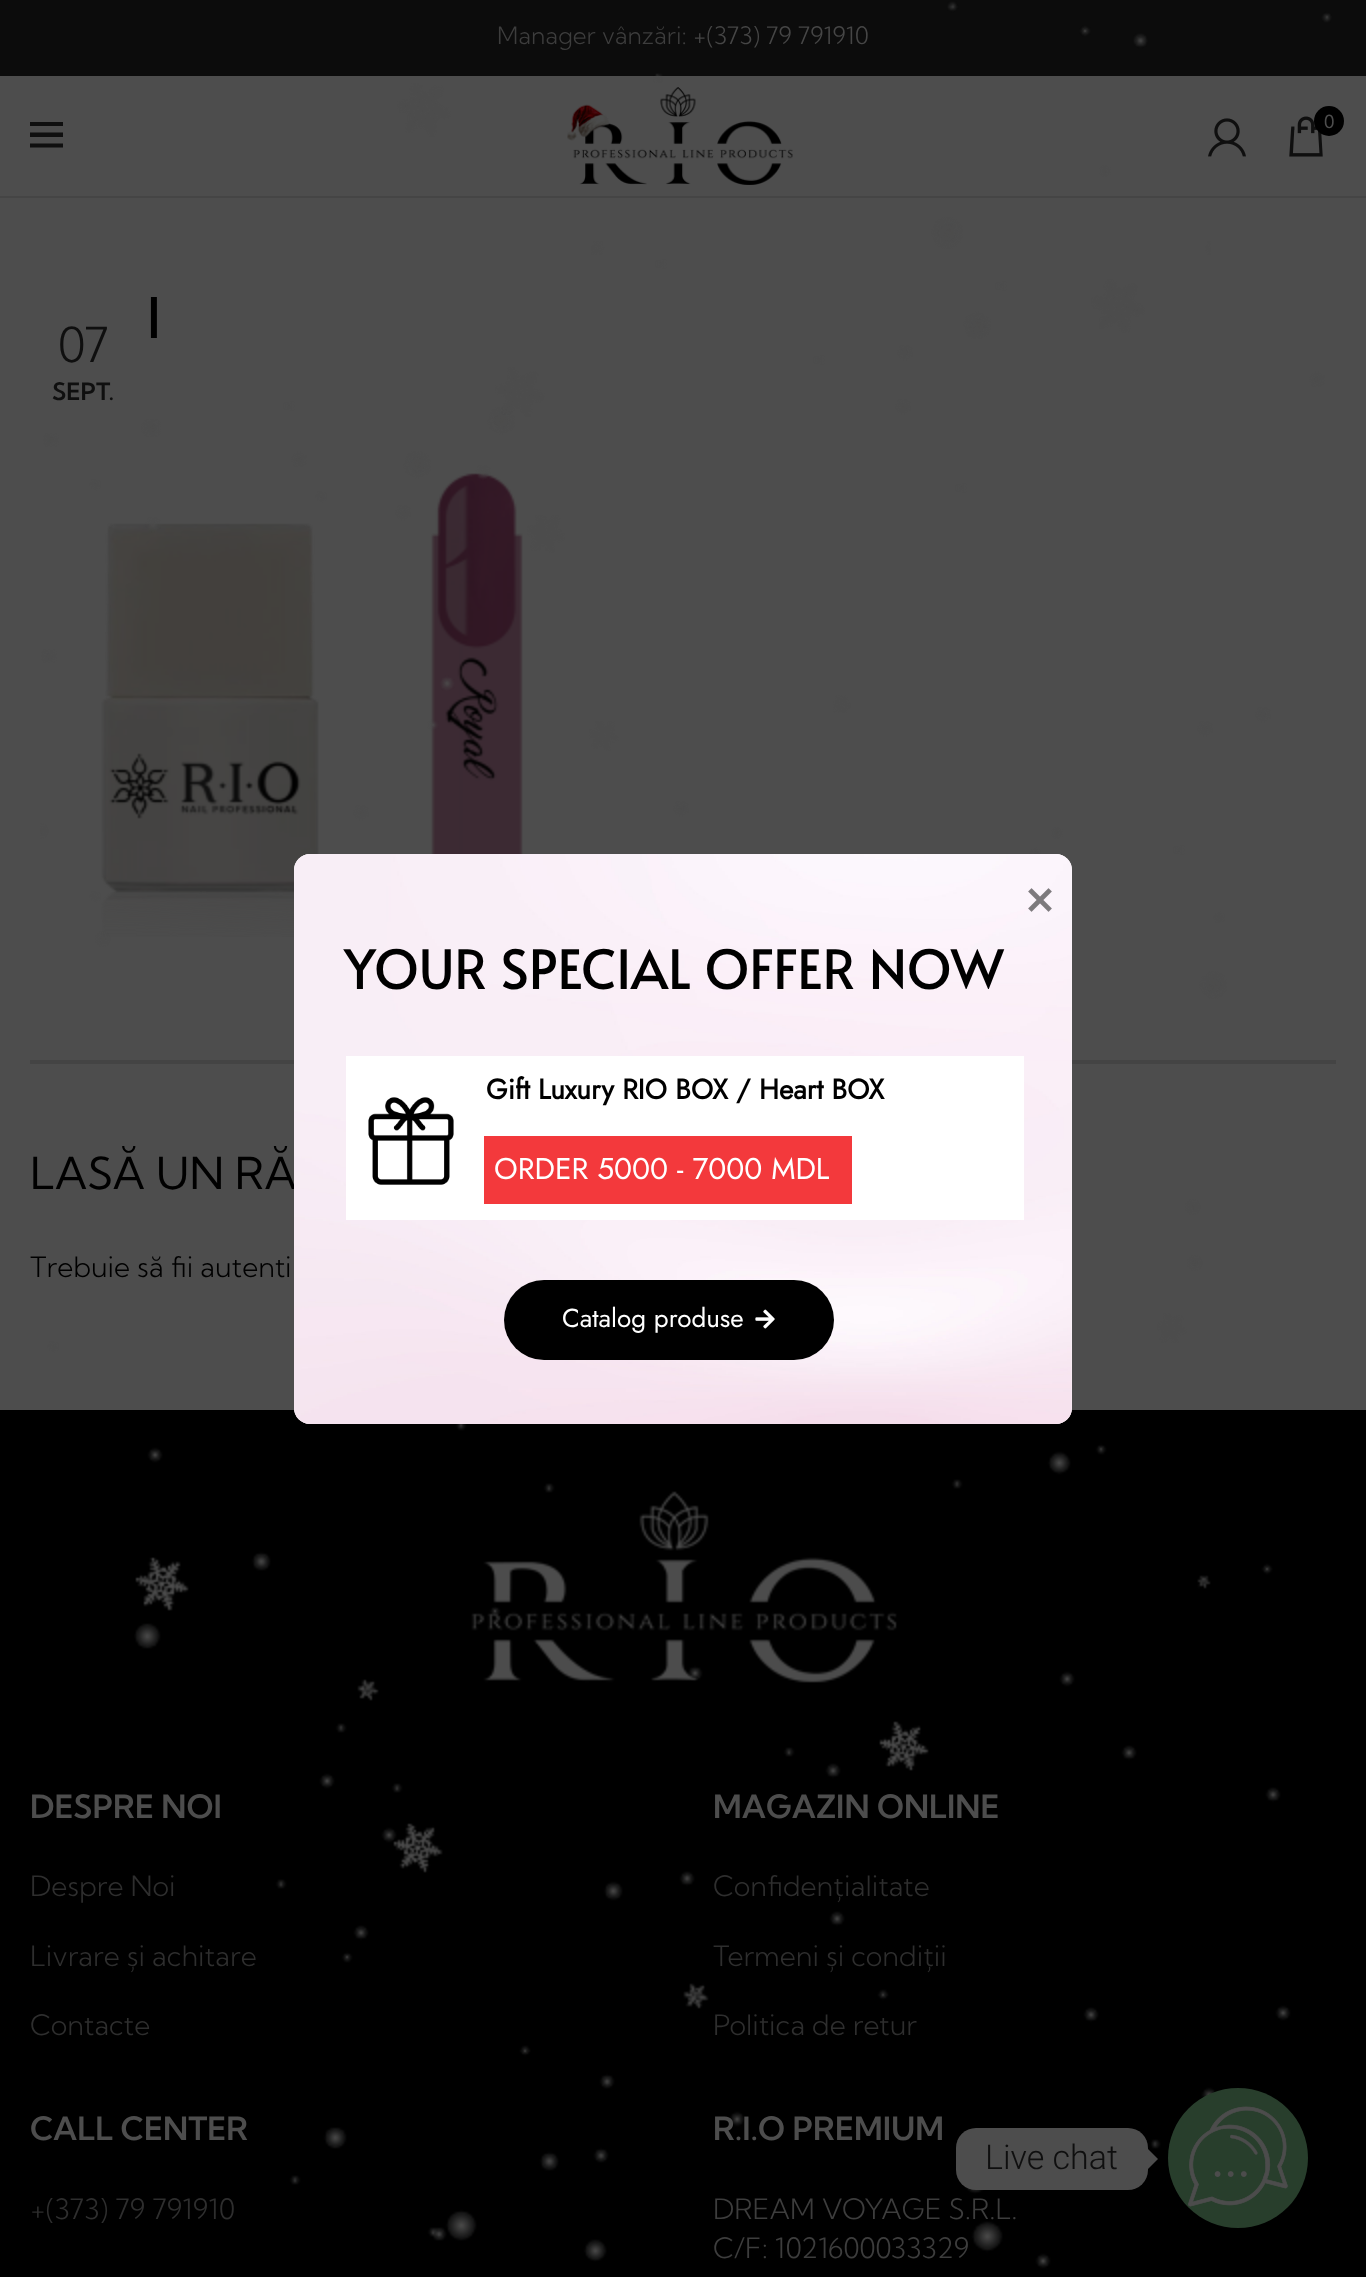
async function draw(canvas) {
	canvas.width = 1366;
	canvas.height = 2277;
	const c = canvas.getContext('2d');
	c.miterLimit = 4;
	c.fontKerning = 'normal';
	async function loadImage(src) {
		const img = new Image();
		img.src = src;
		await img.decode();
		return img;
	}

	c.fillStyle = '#4d4d4d';
	c.fillRect(0, 0, 1366, 2277);
	c.fillStyle = '#0c0c0c';
	c.fillRect(0, 0, 1366, 76);
	c.font = '300 24px Kumbh Sans';
	c.fillStyle = '#3d3d3d';
	c.fillText('Manager vânzări:', 497, 44);
	c.fillStyle = '#464646';
	c.fillText('+(373) 79 791910', 693, 44);
	c.fillStyle = '#454545';
	c.fillRect(0, 196, 1366, 2);
	c.fillStyle = '#0f0f0f';
	c.beginPath();
	c.moveTo(30, 122);
	c.lineTo(63, 122);
	c.lineTo(63, 126);
	c.lineTo(30, 126);
	c.closePath();
	c.moveTo(30, 132.5);
	c.lineTo(63, 132.5);
	c.lineTo(63, 137);
	c.lineTo(30, 137);
	c.closePath();
	c.moveTo(30, 143.5);
	c.lineTo(63, 143.5);
	c.lineTo(63, 147.5);
	c.lineTo(30, 147.5);
	c.closePath();
	c.fill();
	c.drawImage(await loadImage('img2.png'), 567, 87, 226, 98);
	c.drawImage(await loadImage('img3.png'), 1208, 118, 38, 39);
	c.drawImage(await loadImage('img4.png'), 1289, 116, 34, 41);
	c.fillStyle = '#000';
	c.beginPath();
	c.arc(1329, 121, 15, 0, 2 * Math.PI);
	c.fill();
	c.font = '18px Kumbh Sans';
	c.fillStyle = '#4d4d4d';
	c.fillText('0', 1324, 128);
	c.font = '500 56px Kumbh Sans';
	c.fillStyle = '#000';
	c.fillText('l', 147, 338);
	c.font = '300 48px Kumbh Sans';
	c.fillStyle = '#0f0f0f';
	c.fillText('07', 58, 362);
	c.font = '600 24px Kumbh Sans';
	c.fillText('SEPT.', 52, 400);
	c.drawImage(await loadImage('img5.png'), 101, 473, 422, 464);
	c.fillStyle = '#444';
	c.fillRect(30, 1060, 1306, 4);
	c.font = '44px Kumbh Sans';
	c.fillStyle = '#000';
	c.fillText('LASĂ UN RĂ', 30, 1189);
	c.font = '300 28px Kumbh Sans';
	c.fillText('Trebuie să fii autenti', 30, 1277);
	c.fillRect(0, 1410, 1366, 867);
	c.drawImage(await loadImage('img6.png'), 471, 1491, 426, 192);
	c.font = '600 32px Kumbh Sans';
	c.fillStyle = '#4d4d4d';
	c.fillText('DESPRE NOI', 30, 1818);
	c.font = '300 28px Kumbh Sans';
	c.fillStyle = '#2e2e2e';
	for (const [text, x, y] of [
		['Despre Noi', 30, 1896],
		['Livrare și achitare', 30, 1966],
		['Contacte', 30, 2035],
	]) {
		c.fillText(text, x, y);
	}
	c.font = '600 32px Kumbh Sans';
	c.fillStyle = '#4d4d4d';
	c.fillText('MAGAZIN ONLINE', 713, 1818);
	c.font = '300 28px Kumbh Sans';
	c.fillStyle = '#2e2e2e';
	for (const [text, x, y] of [
		['Confidențialitate', 713, 1896],
		['Termeni și condiții', 713, 1966],
		['Politica de retur', 713, 2035],
	]) {
		c.fillText(text, x, y);
	}
	c.font = '600 32px Kumbh Sans';
	c.fillStyle = '#4d4d4d';
	c.fillText('CALL CENTER', 30, 2140);
	c.font = '300 28px Kumbh Sans';
	c.fillStyle = '#2e2e2e';
	c.fillText('+(373) 79 791910', 30, 2219);
	c.font = '600 32px Kumbh Sans';
	c.fillStyle = '#4d4d4d';
	c.fillText('R.I.O PREMIUM', 713, 2140);
	c.font = '300 28px Kumbh Sans';
	c.fillStyle = '#3d3d3d';
	c.fillText('DREAM VOYAGE S.R.L.', 713, 2219);
	c.fillText('C/F: 1021600033329', 713, 2258);
	c.drawImage(await loadImage('img1.png'), 40, 1, 1292, 2268);
	c.drawImage(await loadImage('img7.png'), 134, 25, 1093, 2237);
	c.drawImage(await loadImage('img8.png'), 135, 73, 1076, 1936);
	c.fillStyle = '#fff';
	c.beginPath();
	c.roundRect(294, 854, 778, 570, 16);
	c.fill();
	c.drawImage(await loadImage('img10.png'), 294, 854, 778, 570);
	c.drawImage(await loadImage('img9.png'), 1028, 888, 24, 24);
	c.font = '54px Alata';
	c.fillStyle = '#000';
	c.fillText('YOUR SPECIAL OFFER NOW', 344, 989);
	c.fillStyle = '#fff';
	c.fillRect(346, 1056, 678, 164);
	c.font = 'bold 28px Jost';
	c.fillStyle = '#000';
	c.fillText('Gift Luxury RIO BOX / Heart BOX', 486, 1099);
	c.drawImage(await loadImage('img11.png'), 368, 1097, 86, 88);
	c.fillStyle = '#f3393c';
	c.fillRect(484, 1136, 368, 68);
	c.font = '30px Jost';
	c.fillStyle = '#fff';
	c.fillText('ORDER 5000 - 7000 MDL', 494, 1179);
	c.fillStyle = '#000';
	c.beginPath();
	c.roundRect(504, 1280, 330, 80, 40);
	c.fill();
	c.font = '26px Jost';
	c.fillStyle = '#fff';
	c.fillText('Catalog produse', 562, 1327);
	c.drawImage(await loadImage('img12.png'), 755, 1309, 20, 20);
	c.fillStyle = '#4d4d4d';
	c.beginPath();
	c.roundRect(956, 2128, 192, 62, 20);
	c.fill();
	c.font = '300 34px Roboto';
	c.fillStyle = '#0f0f0f';
	c.fillText('Live chat', 985, 2169);
	c.fillStyle = '#4d4d4d';
	c.beginPath();
	c.moveTo(1148, 2169);
	c.lineTo(1148, 2149);
	c.lineTo(1158, 2159);
	c.closePath();
	c.fill();
	c.fillStyle = '#283e2c';
	c.beginPath();
	c.arc(1238, 2158, 70, 0, 2 * Math.PI);
	c.fill();
	c.drawImage(await loadImage('img13.png'), 1188, 2106, 100, 101);
}

draw(document.querySelector('canvas'));
